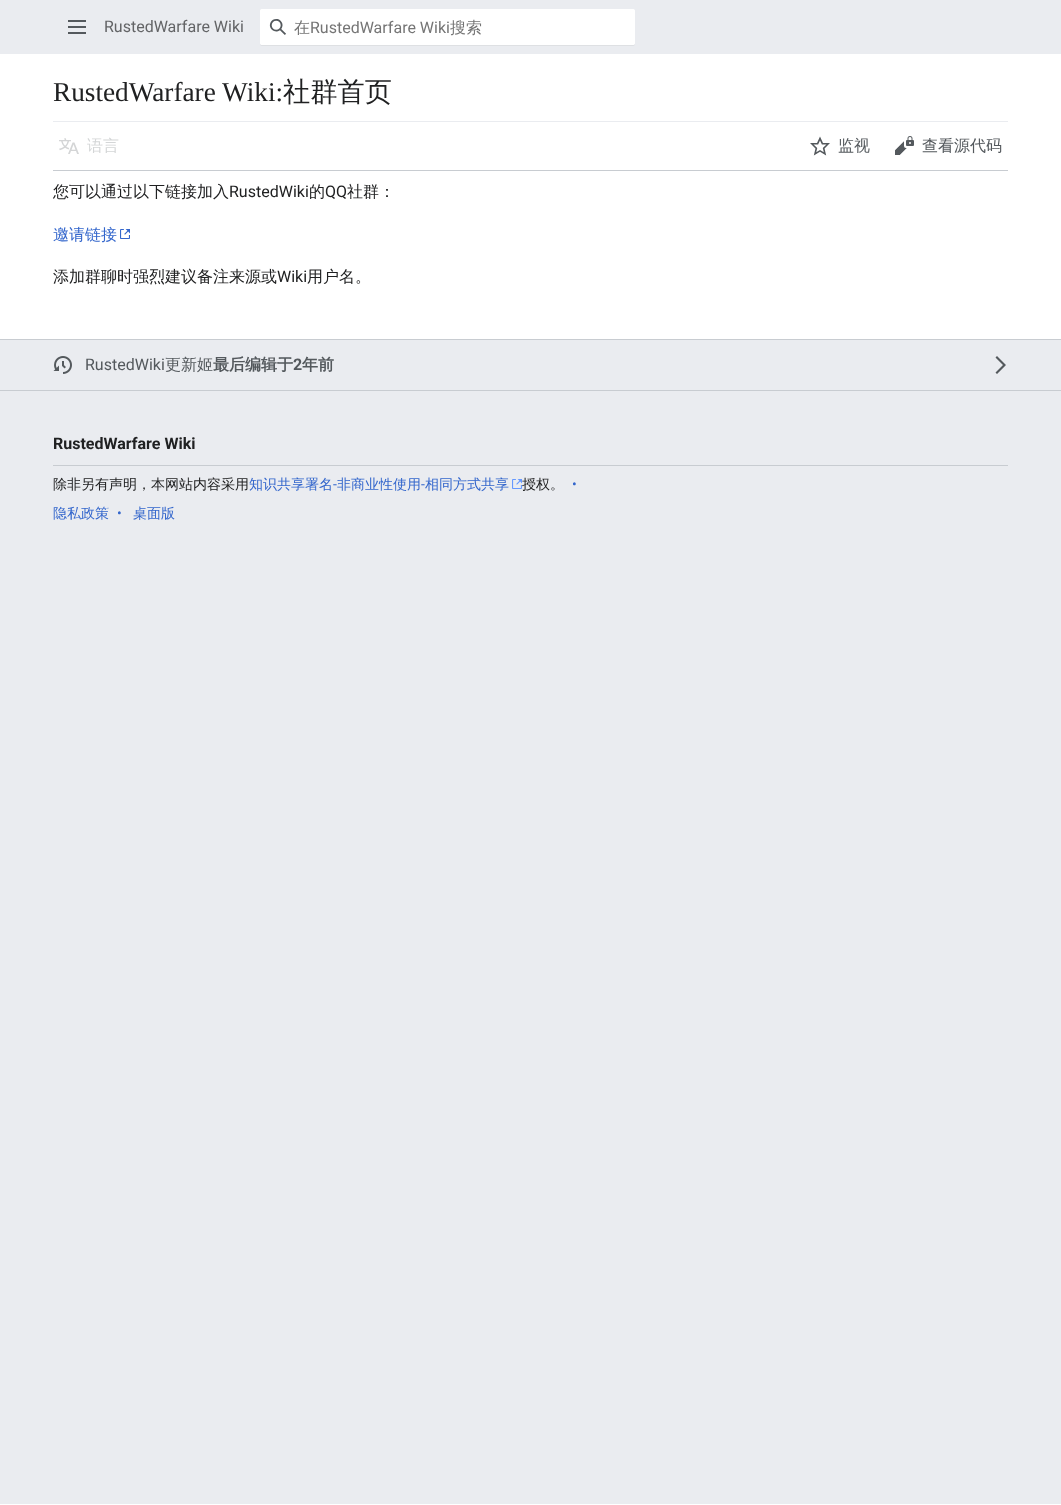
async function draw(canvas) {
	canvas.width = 1061;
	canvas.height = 1505;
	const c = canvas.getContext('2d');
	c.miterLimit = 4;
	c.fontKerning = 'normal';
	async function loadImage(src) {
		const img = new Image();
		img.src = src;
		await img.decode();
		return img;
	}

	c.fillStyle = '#fff';
	c.fillRect(0, 0, 1061, 1505);
	c.fillStyle = '#eaecf0';
	c.fillRect(0, 0, 1061, 1504);
	c.drawImage(await loadImage('img1.png'), 68, 20, 18, 14);
	c.font = '16px Roboto';
	c.fillStyle = '#636466';
	c.fillText('RustedWarfare Wiki', 104, 32);
	c.fillStyle = '#0000000d';
	c.filter = 'blur(0.5px)';
	c.beginPath();
	c.roundRect(260, 10, 375, 36, 2);
	c.fill();
	c.filter = 'none';
	c.fillStyle = '#fff';
	c.beginPath();
	c.roundRect(260, 9, 375, 36, 2);
	c.fill();
	c.drawImage(await loadImage('img2.png'), 269, 19, 17, 16);
	c.beginPath();
	c.roundRect(260.5, 9.5, 374, 35, 1.5);
	c.strokeStyle = '#fff';
	c.stroke();
	c.font = '500 16px WenQuanYi Zen Hei';
	c.fillStyle = '#757575';
	c.fillText('在', 294, 33);
	c.font = '16px Roboto';
	c.fillText('RustedWarfare Wiki', 310, 33);
	c.font = '500 16px WenQuanYi Zen Hei';
	c.fillText('搜索', 450, 33);
	c.fillStyle = '#fff';
	c.fillRect(0, 54, 1061, 285);
	c.font = '27.25px Liberation Serif';
	c.fillStyle = '#202122';
	c.fillText('RustedWarfare Wiki:', 53, 101);
	c.font = '500 27.25px WenQuanYi Zen Hei';
	c.fillText('社群首页', 283, 101);
	c.fillStyle = '#eaecf0';
	c.fillRect(53, 121, 955, 1);
	c.fillStyle = '#c8ccd1';
	c.fillRect(53, 170, 955, 1);
	c.drawImage(await loadImage('img3.png'), 59, 138, 20, 16);
	c.font = '500 16px WenQuanYi Zen Hei';
	c.fillStyle = '#d4d6d7';
	c.fillText('语言', 87, 151);
	c.drawImage(await loadImage('img4.png'), 810, 136, 20, 20);
	c.fillStyle = '#54595d';
	c.fillText('监视', 838, 151);
	c.drawImage(await loadImage('img5.png'), 895, 136, 19, 19);
	c.fillText('查看源代码', 922, 151);
	c.fillStyle = '#202122';
	c.fillText('您可以通过以下链接加入', 53, 197);
	c.font = '16px Roboto';
	c.fillText('RustedWiki', 229, 197);
	c.font = '500 16px WenQuanYi Zen Hei';
	c.fillText('的', 309, 197);
	c.font = '16px Roboto';
	c.fillText('QQ', 325, 197);
	c.font = '500 16px WenQuanYi Zen Hei';
	c.fillText('社群：', 347, 197);
	c.fillStyle = '#36c';
	c.fillText('邀请链接', 53, 240);
	c.drawImage(await loadImage('img6.png'), 120, 229, 10, 10);
	c.fillStyle = '#202122';
	c.fillText('添加群聊时强烈建议备注来源或', 53, 282);
	c.font = '16px Roboto';
	c.fillText('Wiki', 277, 282);
	c.font = '500 16px WenQuanYi Zen Hei';
	c.fillText('用户名。', 307, 282);
	c.fillStyle = '#c8ccd1';
	c.fillRect(0, 339, 1061, 1);
	c.fillRect(0, 390, 1061, 1);
	c.drawImage(await loadImage('img7.png'), 53, 356, 19, 18);
	c.font = '16px Roboto';
	c.fillStyle = '#54595d';
	c.fillText('RustedWiki', 85, 370);
	c.font = '500 16px WenQuanYi Zen Hei';
	c.fillText('更新姬', 165, 370);
	c.font = 'bold 16px WenQuanYi Zen Hei';
	c.fillText('最后编辑于', 213, 370);
	c.font = 'bold 16px Roboto';
	c.fillText('2', 293, 370);
	c.font = 'bold 16px WenQuanYi Zen Hei';
	c.fillText('年前', 302, 370);
	c.beginPath();
	c.moveTo(997, 356);
	c.lineTo(995.5, 357.5);
	c.lineTo(1003, 365);
	c.lineTo(995.5, 372.5);
	c.lineTo(997, 374);
	c.lineTo(1006, 365);
	c.closePath();
	c.fill();
	c.fillStyle = '#c8ccd1';
	c.fillRect(53, 465, 955, 1);
	c.font = 'bold 16px Roboto';
	c.fillStyle = '#202122';
	c.fillText('RustedWarfare Wiki', 53, 449);
	c.font = '500 14px WenQuanYi Zen Hei';
	c.fillText('除非另有声明，本网站内容采用', 53, 489);
	c.fillStyle = '#36c';
	c.fillText('知识共享署名', 249, 489);
	c.font = '14px Roboto';
	c.fillText('-', 333, 489);
	c.font = '500 14px WenQuanYi Zen Hei';
	c.fillText('非商业性使用', 337, 489);
	c.font = '14px Roboto';
	c.fillText('-', 421, 489);
	c.font = '500 14px WenQuanYi Zen Hei';
	c.fillText('相同方式共享', 425, 489);
	c.drawImage(await loadImage('img8.png'), 512, 479, 10, 10);
	c.fillStyle = '#202122';
	c.fillText('授权。', 522, 489);
	c.font = '14px Roboto';
	c.fillStyle = '#36c';
	c.fillText('•', 572, 489);
	c.font = '500 14px WenQuanYi Zen Hei';
	c.fillText('隐私政策', 53, 518);
	c.font = '14px Roboto';
	c.fillText('•', 117, 518);
	c.font = '500 14px WenQuanYi Zen Hei';
	c.fillText('桌面版', 133, 518);
}

draw(document.querySelector('canvas'));
